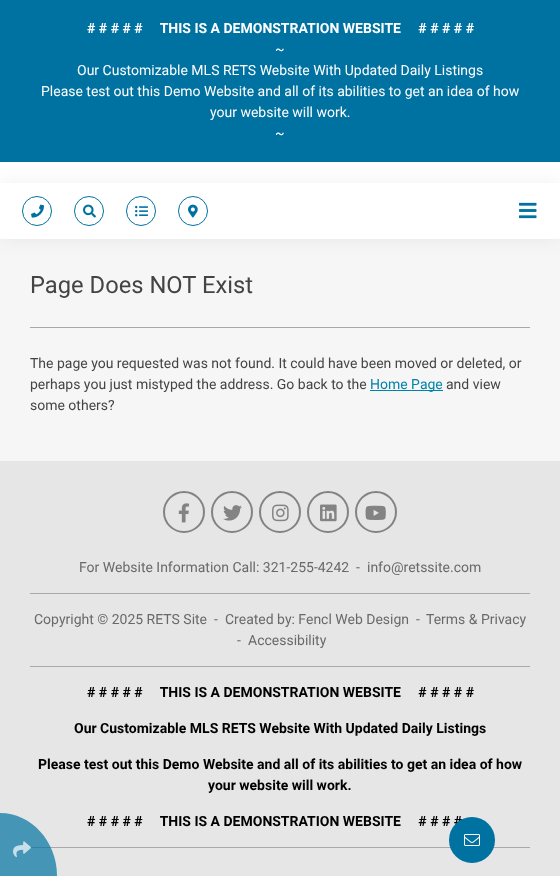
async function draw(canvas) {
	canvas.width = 560;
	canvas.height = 876;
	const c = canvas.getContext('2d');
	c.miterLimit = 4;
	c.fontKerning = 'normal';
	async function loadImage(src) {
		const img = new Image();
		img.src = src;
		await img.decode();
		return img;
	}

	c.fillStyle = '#f6f6f6';
	c.fillRect(0, 0, 560, 876);
	c.fillStyle = '#fff';
	c.fillRect(0, 162, 560, 21);
	c.fillStyle = '#0000000f';
	c.filter = 'blur(10px)';
	c.beginPath();
	c.rect(0, 183, 560, 56);
	c.fill();
	c.filter = 'none';
	c.fillStyle = '#0072a2';
	c.fillRect(0, 0, 560, 162);
	c.font = 'bold 14px Roboto';
	c.fillStyle = '#fff';
	c.fillText('# # # # #     THIS IS A DEMONSTRATION WEBSITE     # # # # #', 87, 33);
	c.font = '14px Roboto';
	for (const [text, x, y] of [
		['~', 275, 54],
		['Our Customizable MLS RETS Website With Updated Daily Listings', 77, 75],
		['Please test out this Demo Website and all of its abilities to get an idea of how', 41, 96],
		['your website will work.', 210, 117],
		['~', 275, 138],
	]) {
		c.fillText(text, x, y);
	}
	c.fillRect(0, 183, 560, 56);
	c.beginPath();
	c.arc(37, 211, 14.5, 0, 2 * Math.PI);
	c.strokeStyle = '#0072a2';
	c.stroke();
	c.drawImage(await loadImage('img1.png'), 31, 204, 13, 14);
	c.beginPath();
	c.arc(89, 211, 14.5, 0, 2 * Math.PI);
	c.stroke();
	c.drawImage(await loadImage('img2.png'), 83, 204, 13, 14);
	c.beginPath();
	c.arc(141, 211, 14.5, 0, 2 * Math.PI);
	c.stroke();
	c.drawImage(await loadImage('img3.png'), 135, 205, 13, 12);
	c.beginPath();
	c.arc(193, 211, 14.5, 0, 2 * Math.PI);
	c.stroke();
	c.drawImage(await loadImage('img4.png'), 188, 204, 10, 14);
	c.drawImage(await loadImage('img5.png'), 519, 202, 18, 17);
	c.font = '23.75px Roboto';
	c.fillStyle = '#444';
	c.fillText('Page Does NOT Exist', 30, 293);
	c.fillStyle = '#a9a9a9';
	c.fillRect(30, 327, 500, 1);
	c.font = '14px Roboto';
	c.fillStyle = '#444';
	c.fillText('The page you requested was not found. It could have been moved or deleted, or', 30, 368);
	c.fillText('perhaps you just mistyped the address. Go back to the', 30, 389);
	c.fillStyle = '#0082ab';
	c.fillRect(370, 390, 73, 1);
	c.fillText('Home Page', 370, 389);
	c.fillStyle = '#444';
	c.fillText('and view', 446, 389);
	c.fillText('some others?', 30, 410);
	c.fillStyle = '#e6e6e6';
	c.fillRect(0, 461, 560, 415);
	c.beginPath();
	c.arc(184, 512, 20, 0, 2 * Math.PI);
	c.strokeStyle = '#838383';
	c.lineWidth = 2;
	c.stroke();
	c.drawImage(await loadImage('img6.png'), 178, 503, 11, 20);
	c.beginPath();
	c.arc(232, 512, 20, 0, 2 * Math.PI);
	c.stroke();
	c.drawImage(await loadImage('img7.png'), 223, 505, 19, 16);
	c.beginPath();
	c.arc(280, 512, 20, 0, 2 * Math.PI);
	c.stroke();
	c.drawImage(await loadImage('img8.png'), 272, 504, 17, 18);
	c.beginPath();
	c.arc(328, 512, 20, 0, 2 * Math.PI);
	c.stroke();
	c.drawImage(await loadImage('img9.png'), 320, 504, 17, 18);
	c.beginPath();
	c.arc(376, 512, 20, 0, 2 * Math.PI);
	c.stroke();
	c.drawImage(await loadImage('img10.png'), 365, 505, 21, 15);
	c.fillStyle = '#696969';
	for (const [text, x, y] of [
		['For Website Information Call: 321-255-4242', 79, 572],
		['-', 356, 572],
		['info@retssite.com', 367, 572],
	]) {
		c.fillText(text, x, y);
	}
	c.fillStyle = '#a9a9a9';
	c.fillRect(30, 593, 500, 1);
	c.fillStyle = '#696969';
	for (const [text, x, y] of [
		['Copyright © 2025 RETS Site', 34, 624],
		['-', 214, 624],
		['Created by: Fencl Web Design', 225, 624],
		['-', 416, 624],
		['Terms & Privacy', 426, 624],
		['-', 237, 645],
		['Accessibility', 248, 645],
	]) {
		c.fillText(text, x, y);
	}
	c.fillStyle = '#a9a9a9';
	c.fillRect(30, 666, 500, 1);
	c.font = 'bold 14px Roboto';
	c.fillStyle = '#000';
	for (const [text, x, y] of [
		['# # # # #     THIS IS A DEMONSTRATION WEBSITE     # # # # #', 87, 697],
		['Our Customizable MLS RETS Website With Updated Daily Listings', 74, 733],
		['Please test out this Demo Website and all of its abilities to get an idea of how', 38, 769],
		['your website will work.', 208, 790],
		['# # # # #     THIS IS A DEMONSTRATION WEBSITE     # # # #', 87, 826],
	]) {
		c.fillText(text, x, y);
	}
	c.fillStyle = '#a9a9a9';
	c.fillRect(30, 847, 500, 1);
	c.fillStyle = '#0072a2b3';
	c.beginPath();
	c.moveTo(0, 813);
	c.bezierCurveTo(31, 813, 57, 841, 57, 876);
	c.lineTo(0, 876);
	c.closePath();
	c.fill();
	c.drawImage(await loadImage('img11.png'), 13, 841, 18, 17);
	c.fillStyle = '#0072a2';
	c.beginPath();
	c.arc(472, 840, 22, 0, 2 * Math.PI);
	c.fill();
	c.strokeStyle = '#0072a2';
	c.stroke();
	c.drawImage(await loadImage('img12.png'), 464, 834, 16, 12);
}

draw(document.querySelector('canvas'));
